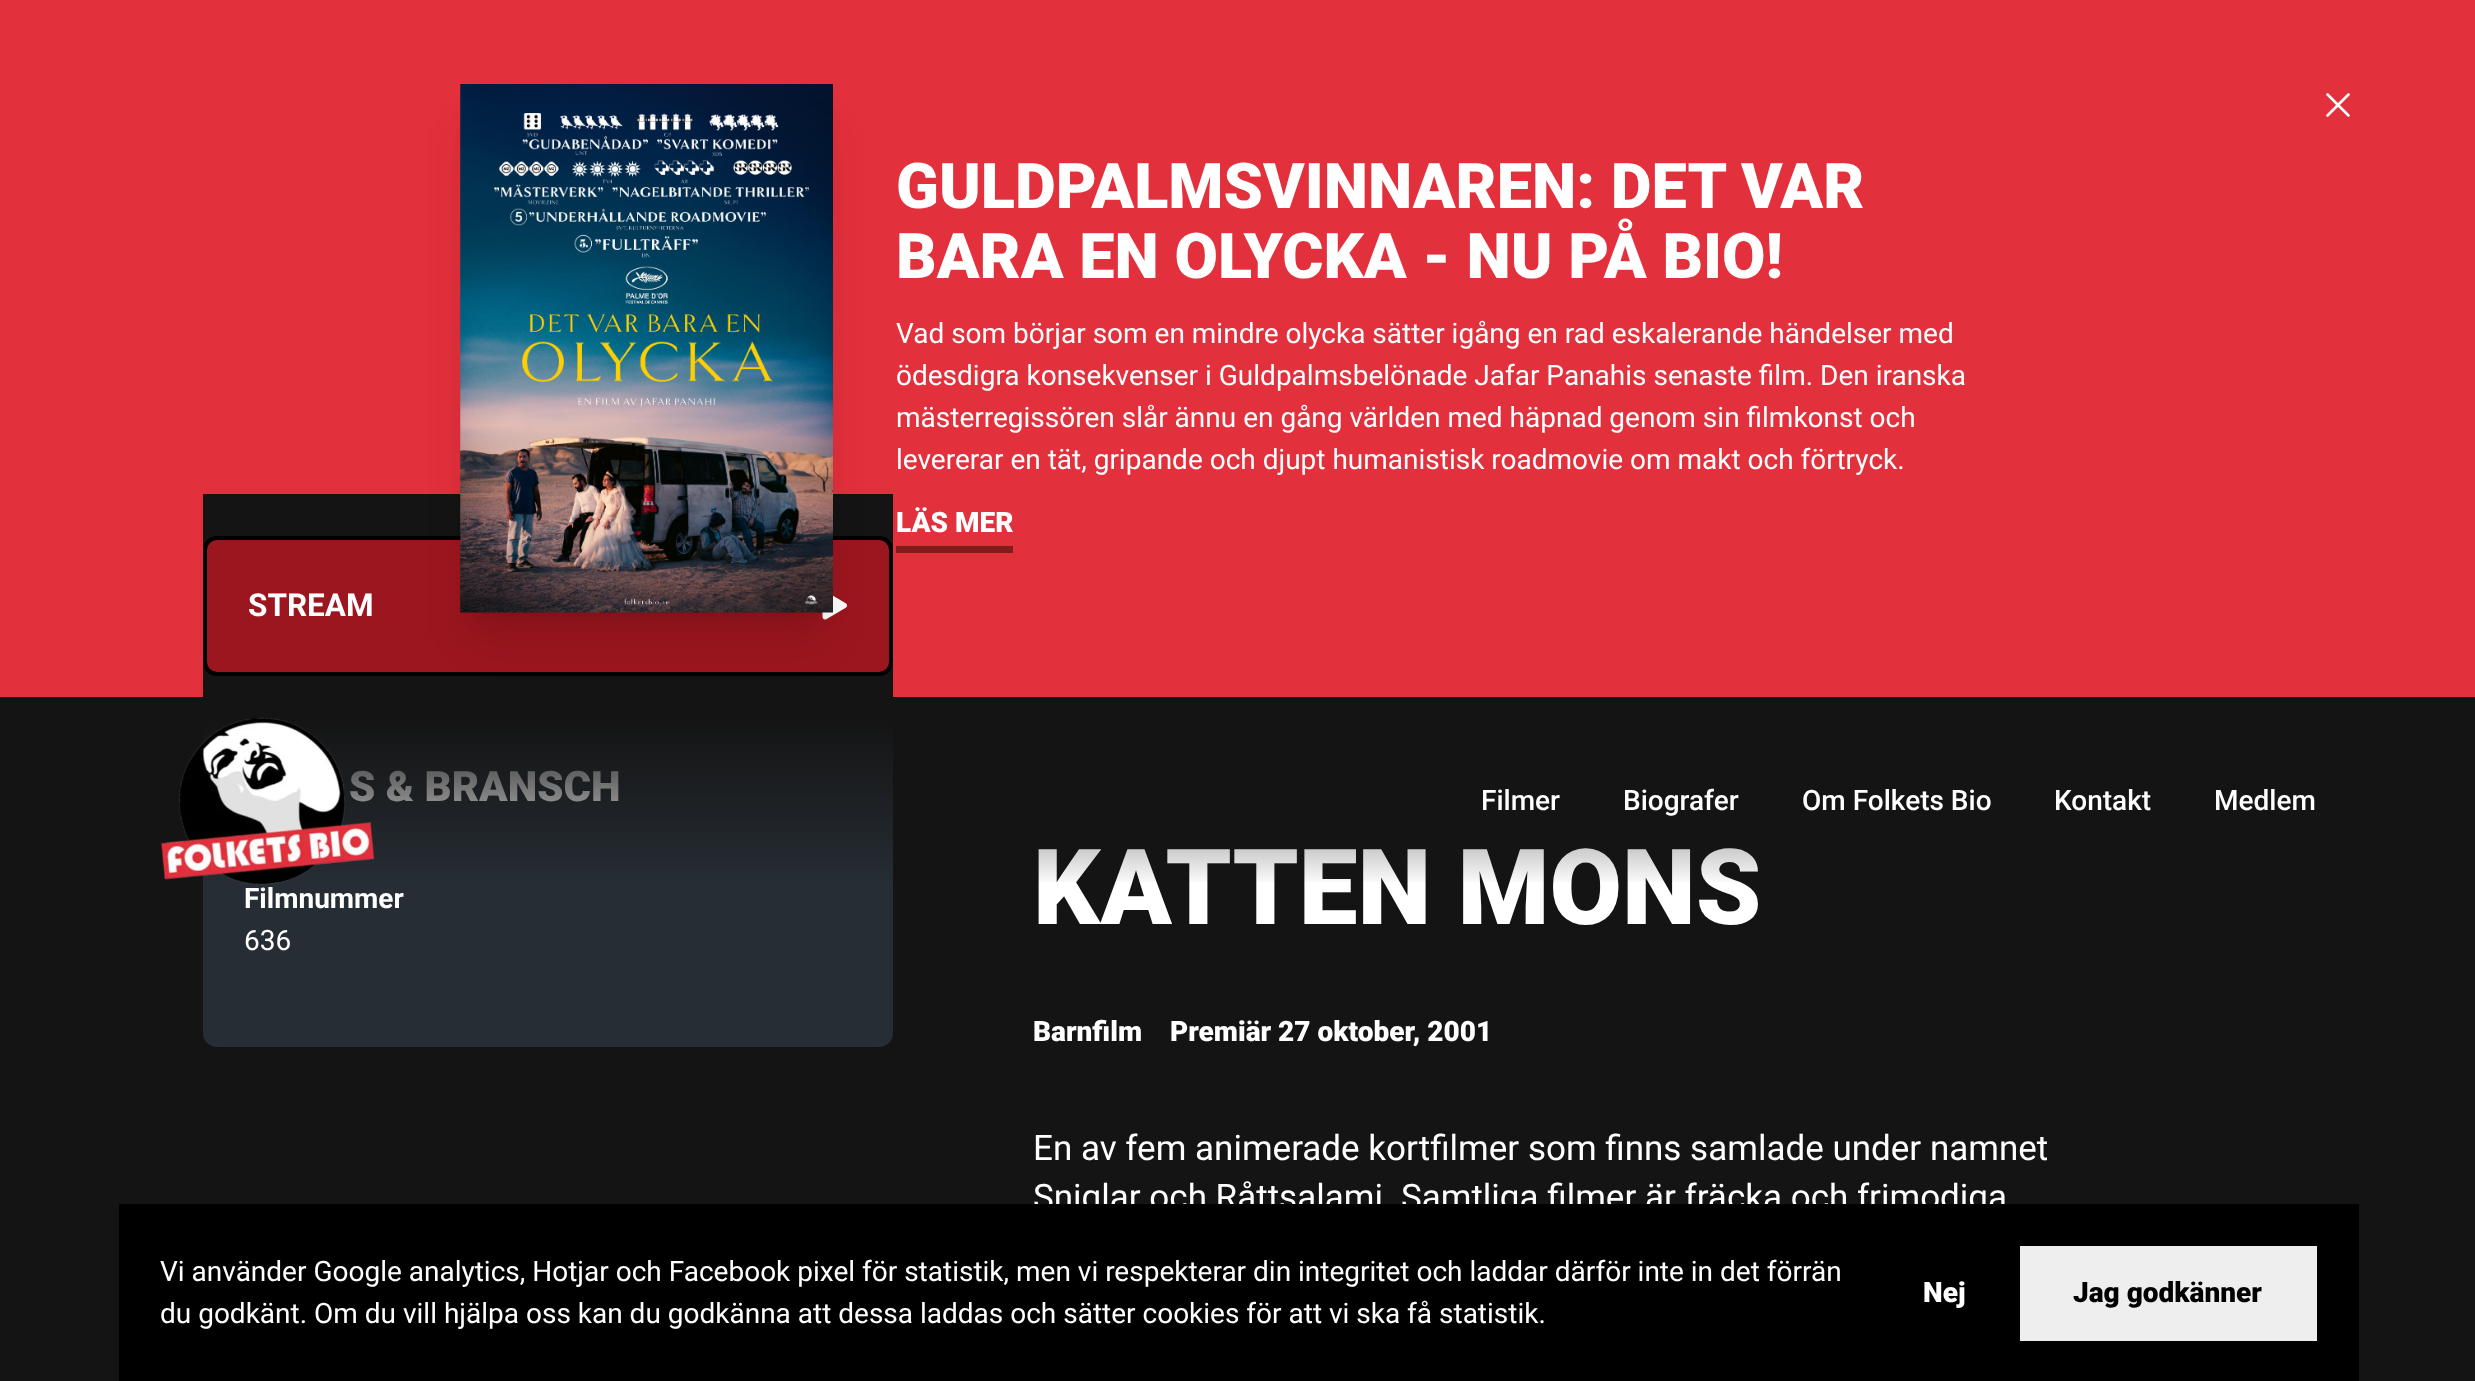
async function draw(canvas) {
	canvas.width = 2475;
	canvas.height = 1381;
	const c = canvas.getContext('2d');
	c.miterLimit = 4;
	c.fontKerning = 'normal';
	async function loadImage(src) {
		const img = new Image();
		img.src = src;
		await img.decode();
		return img;
	}
	let gradient;

	c.fillStyle = '#141414';
	c.fillRect(0, 0, 2475, 1381);
	c.fillStyle = '#e2303c';
	c.fillRect(0, 0, 2475, 697);
	c.fillStyle = '#141414';
	c.fillRect(203, 494, 690, 203);
	c.fillStyle = '#9c161f';
	c.beginPath();
	c.roundRect(205, 538, 686, 136, 12);
	c.fill();
	c.strokeStyle = '#000';
	c.lineWidth = 4;
	c.stroke();
	c.drawImage(await loadImage('img2.png'), 822, 595, 25, 25);
	c.fillStyle = '#0000001a';
	c.filter = 'blur(9px)';
	c.beginPath();
	c.rect(471, 109, 352, 507);
	c.fill();
	c.filter = 'none';
	c.filter = 'blur(22px)';
	c.beginPath();
	c.rect(469, 128, 355, 511);
	c.fill();
	c.filter = 'none';
	c.drawImage(await loadImage('img1.png'), 460, 84, 373, 529);
	c.beginPath();
	c.moveTo(2327.5, 115.5);
	c.lineTo(2348.5, 94.5);
	c.moveTo(2327.5, 94.5);
	c.lineTo(2348.5, 115.5);
	c.strokeStyle = '#fff';
	c.lineWidth = 2.6;
	c.lineCap = 'round';
	c.lineJoin = 'round';
	c.stroke();
	c.font = '900 63px Roboto';
	c.fillStyle = '#fff';
	c.fillText('GULDPALMSVINNAREN: DET VAR', 896, 208);
	c.fillText('BARA EN OLYCKA - NU PÅ BIO!', 896, 278);
	c.font = '28px Roboto';
	for (const [text, x, y] of [
		['Vad som börjar som en mindre olycka sätter igång en rad eskalerande händelser med', 896, 343],
		['ödesdigra konsekvenser i Guldpalmsbelönade Jafar Panahis senaste film. Den iranska', 896, 385],
		['mästerregissören slår ännu en gång världen med häpnad genom sin filmkonst och', 896, 427],
		['levererar en tät, gripande och djupt humanistisk roadmovie om makt och förtryck.', 896, 469],
	]) {
		c.fillText(text, x, y);
	}
	c.font = '900 28px Roboto';
	c.fillText('LÄS MER', 896, 532);
	c.fillStyle = '#7f1d1d';
	c.fillRect(896, 546, 117, 7);
	c.font = 'bold 31.5px Roboto';
	c.fillStyle = '#fff';
	c.fillText('STREAM', 248, 616);
	c.fillStyle = '#262d34';
	c.beginPath();
	c.roundRect(203, 718, 690, 329, 14);
	c.fill();
	c.font = '900 42px Roboto';
	c.fillStyle = '#fff';
	c.fillText('S & BRANSCH', 349, 801);
	c.font = 'bold 28px Roboto';
	c.fillText('Filmnummer', 244, 908);
	c.font = '28px Roboto';
	c.fillText('636', 244, 950);
	c.font = '900 105px Roboto';
	c.fillText('KATTEN MONS', 1033, 924);
	c.font = '900 28px Roboto';
	c.fillText('Barnfilm', 1033, 1041);
	c.fillText('Premiär 27 oktober, 2001', 1170, 1041);
	c.font = '35px Roboto';
	c.fillText('En av fem animerade kortfilmer som finns samlade under namnet', 1033, 1160);
	c.fillText('Sniglar och Råttsalami. Samtliga filmer är fräcka och frimodiga', 1033, 1209);
	gradient = c.createLinearGradient(1238, 717, 1238, 886);
	gradient.addColorStop(0, '#141414');
	gradient.addColorStop(1, '#14141400');
	c.fillStyle = gradient;
	c.fillRect(203, 718, 1555, 164);
	c.drawImage(await loadImage('img3.png'), 160, 717, 215, 168);
	c.font = '500 28px Roboto';
	c.fillStyle = '#fff';
	for (const [text, x, y] of [
		['Filmer', 1481, 810],
		['Biografer', 1623, 810],
		['Om Folkets Bio', 1802, 810],
		['Kontakt', 2054, 810],
		['Medlem', 2214, 810],
	]) {
		c.fillText(text, x, y);
	}
	c.fillStyle = '#000';
	c.fillRect(119, 1204, 2240, 177);
	c.font = '28px Roboto';
	c.fillStyle = '#fff';
	c.fillText('Vi använder Google analytics, Hotjar och Facebook pixel för statistik, men vi respekterar din integritet och laddar därför inte in det förrän', 160, 1281);
	c.fillText('du godkänt. Om du vill hjälpa oss kan du godkänna att dessa laddas och sätter cookies för att vi ska få statistik.', 160, 1323);
	c.font = '900 28px Roboto';
	c.fillText('Nej', 1923, 1302);
	c.fillStyle = '#eee';
	c.fillRect(2020, 1246, 297, 95);
	c.fillStyle = '#000';
	c.fillText('Jag godkänner', 2073, 1302);
}

draw(document.querySelector('canvas'));
